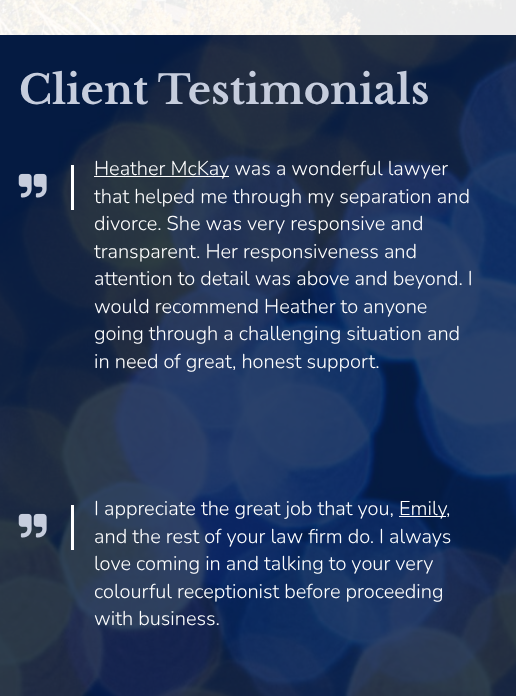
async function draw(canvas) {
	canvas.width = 516;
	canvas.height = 696;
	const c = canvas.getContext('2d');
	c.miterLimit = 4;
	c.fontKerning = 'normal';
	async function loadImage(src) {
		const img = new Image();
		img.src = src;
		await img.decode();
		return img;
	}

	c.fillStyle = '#fff';
	c.fillRect(0, 0, 516, 696);
	c.drawImage(await loadImage('img1.png'), 0, 0, 516, 35);
	c.fillStyle = '#06204f';
	c.fillRect(0, 35, 516, 661);
	c.drawImage(await loadImage('img2.png'), 0, 35, 516, 661);
	c.font = 'bold 40px Libre Baskerville';
	c.fillStyle = '#c6cddd';
	c.fillText('Client Testimonials', 19, 104);
	c.drawImage(await loadImage('img3.png'), 18, 173, 29, 25);
	c.fillStyle = '#fff';
	c.fillRect(71, 165, 3, 45);
	c.fillRect(94, 176, 135, 1);
	c.font = '300 20px Nunito';
	for (const [text, x, y] of [
		['Heather McKay was a wonderful lawyer', 94, 175],
		['that helped me through my separation and', 94, 203],
		['divorce. She was very responsive and', 94, 230],
		['transparent. Her responsiveness and', 94, 258],
		['attention to detail was above and beyond. I', 94, 285],
		['would recommend Heather to anyone', 94, 313],
		['going through a challenging situation and', 94, 340],
		['in need of great, honest support.', 94, 368],
	]) {
		c.fillText(text, x, y);
	}
	c.drawImage(await loadImage('img4.png'), 18, 513, 29, 25);
	c.fillRect(71, 505, 3, 45);
	c.fillText('I appreciate the great job that you,', 94, 515);
	c.fillRect(399, 516, 47, 1);
	for (const [text, x, y] of [
		['Emily', 399, 515],
		[',', 446, 515],
		['and the rest of your law firm do. I always', 94, 543],
		['love coming in and talking to your very', 94, 570],
		['colourful receptionist before proceeding', 94, 598],
		['with business.', 94, 625],
	]) {
		c.fillText(text, x, y);
	}
}

draw(document.querySelector('canvas'));
